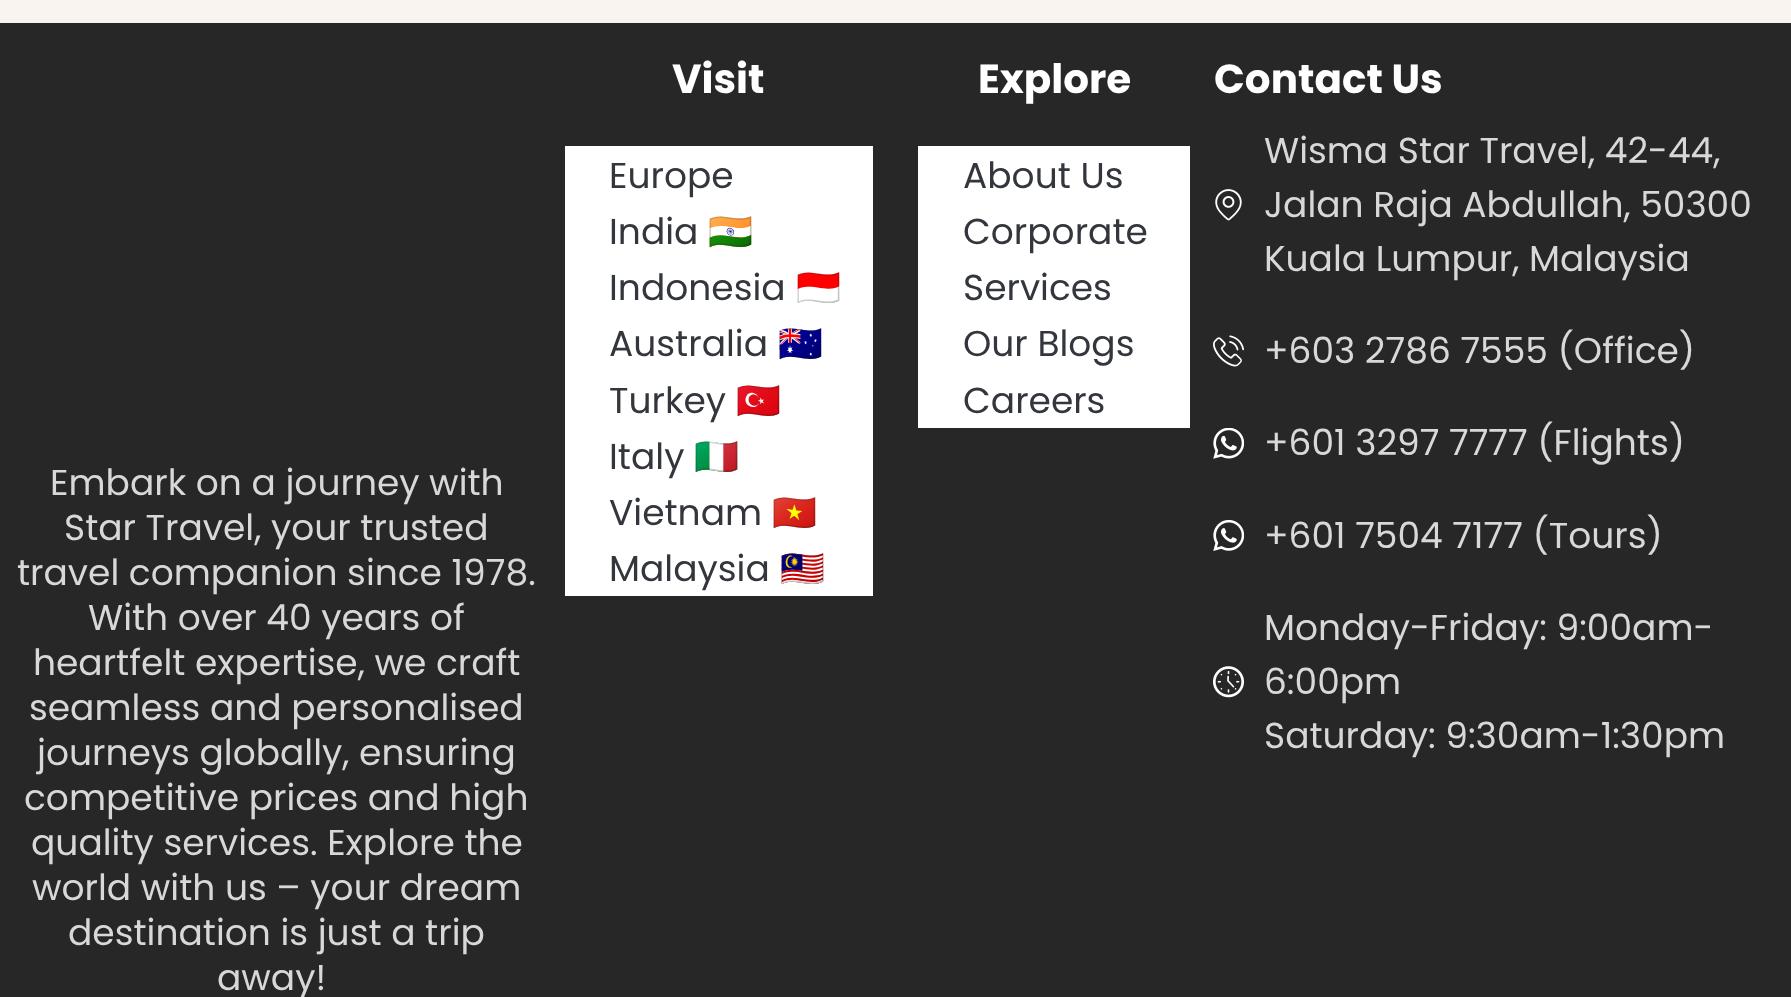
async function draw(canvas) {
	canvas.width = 1791;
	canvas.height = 997;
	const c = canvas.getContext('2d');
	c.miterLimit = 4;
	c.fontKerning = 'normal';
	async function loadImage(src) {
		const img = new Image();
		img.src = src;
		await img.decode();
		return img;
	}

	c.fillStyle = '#f9f4f0';
	c.fillRect(0, 0, 1791, 997);
	c.fillStyle = '#272727';
	c.fillRect(0, 23, 1791, 974);
	c.font = '36px Poppins';
	c.fillStyle = '#d8d8d8';
	for (const [text, x, y] of [
		['Embark on a journey with', 50, 495],
		['Star Travel, your trusted', 64, 540],
		['travel companion since 1978.', 17, 585],
		['With over 40 years of', 88, 630],
		['heartfelt expertise, we craft', 33, 675],
		['seamless and personalised', 29, 720],
		['journeys globally, ensuring', 37, 765],
		['competitive prices and high', 24, 810],
		['quality services. Explore the', 31, 855],
		['world with us – your dream', 32, 900],
		['destination is just a trip', 68, 945],
		['away!', 217, 990],
	]) {
		c.fillText(text, x, y);
	}
	c.font = 'bold 40.5px Poppins';
	c.fillStyle = '#fff';
	c.fillText('Visit', 672, 93);
	c.fillRect(565, 146, 308, 450);
	c.font = '36px Poppins';
	c.fillStyle = '#33373d';
	c.fillText('Europe', 609, 188);
	c.fillText('India', 609, 244);
	c.font = '36px Noto Color Emoji';
	c.fillText('🇮🇳', 708, 244);
	c.font = '36px Poppins';
	c.fillText('Indonesia', 609, 300);
	c.font = '36px Noto Color Emoji';
	c.fillText('🇮🇩', 796, 300);
	c.font = '36px Poppins';
	c.fillText('Australia', 609, 356);
	c.font = '36px Noto Color Emoji';
	c.fillText('🇦🇺', 778, 356);
	c.font = '36px Poppins';
	c.fillText('Turkey', 609, 413);
	c.font = '36px Noto Color Emoji';
	c.fillText('🇹🇷', 736, 413);
	c.font = '36px Poppins';
	c.fillText('Italy', 609, 469);
	c.font = '36px Noto Color Emoji';
	c.fillText('🇮🇹', 694, 469);
	c.font = '36px Poppins';
	c.fillText('Vietnam', 609, 525);
	c.font = '36px Noto Color Emoji';
	c.fillText('🇻🇳', 772, 525);
	c.font = '36px Poppins';
	c.fillText('Malaysia', 609, 581);
	c.font = '36px Noto Color Emoji';
	c.fillText('🇲🇾', 780, 581);
	c.font = 'bold 40.5px Poppins';
	c.fillStyle = '#fff';
	c.fillText('Explore', 978, 93);
	c.fillRect(918, 146, 272, 282);
	c.font = '36px Poppins';
	c.fillStyle = '#33373d';
	for (const [text, x, y] of [
		['About Us', 963, 188],
		['Corporate', 963, 244],
		['Services', 963, 300],
		['Our Blogs', 963, 356],
		['Careers', 963, 413],
	]) {
		c.fillText(text, x, y);
	}
	c.font = 'bold 40.5px Poppins';
	c.fillStyle = '#fff';
	c.fillText('Contact Us', 1214, 93);
	c.drawImage(await loadImage('img1.png'), 1215, 189, 27, 32);
	c.font = '36px Poppins';
	c.fillStyle = '#d8d8d8';
	for (const [text, x, y] of [
		['Wisma Star Travel, 42-44,', 1264, 163],
		['Jalan Raja Abdullah, 50300', 1264, 217],
		['Kuala Lumpur, Malaysia', 1264, 271],
	]) {
		c.fillText(text, x, y);
	}
	c.drawImage(await loadImage('img2.png'), 1213, 335, 31, 32);
	c.fillText('+603 2786 7555 (Office)', 1264, 363);
	c.drawImage(await loadImage('img3.png'), 1213, 428, 31, 31);
	c.fillText('+601 3297 7777 (Flights)', 1264, 455);
	c.drawImage(await loadImage('img4.png'), 1213, 520, 31, 31);
	c.fillText('+601 7504 7177 (Tours)', 1264, 548);
	c.drawImage(await loadImage('img5.png'), 1213, 666, 31, 32);
	for (const [text, x, y] of [
		['Monday-Friday: 9:00am-', 1264, 640],
		['6:00pm', 1264, 694],
		['Saturday: 9:30am-1:30pm', 1264, 748],
	]) {
		c.fillText(text, x, y);
	}
}

draw(document.querySelector('canvas'));
